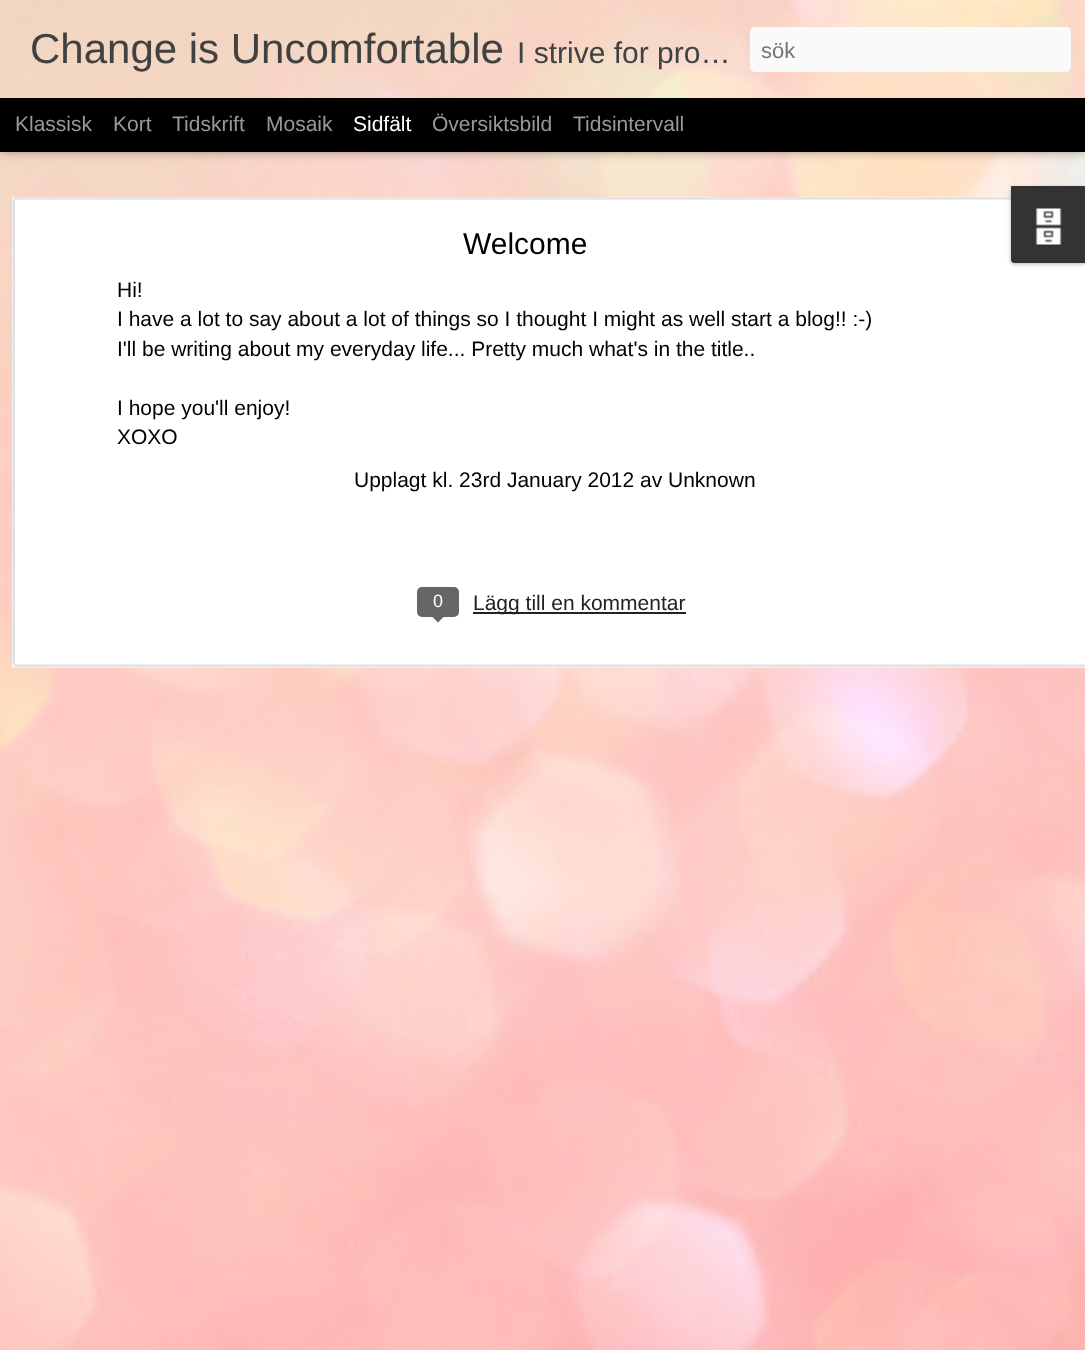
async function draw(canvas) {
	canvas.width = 1085;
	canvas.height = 1350;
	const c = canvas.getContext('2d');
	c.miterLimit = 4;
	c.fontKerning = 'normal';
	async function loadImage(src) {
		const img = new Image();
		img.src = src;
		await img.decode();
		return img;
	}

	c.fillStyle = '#000';
	c.fillRect(0, 0, 1085, 1350);
	c.drawImage(await loadImage('img2.png'), 0, 152, 1085, 1198);
	c.fillStyle = '#00000080';
	c.filter = 'blur(6px)';
	c.beginPath();
	c.rect(0, 98, 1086, 52);
	c.fill();
	c.filter = 'none';
	c.drawImage(await loadImage('img1.png'), 0, 0, 1085, 98);
	c.font = '42px Liberation Sans';
	c.fillStyle = '#414141';
	c.fillText('Change is Uncomfortable', 30, 63);
	c.font = '30px Liberation Sans';
	c.fillText('I strive for pro…', 517, 63);
	c.fillStyle = '#fafafa';
	c.beginPath();
	c.roundRect(750, 27, 321, 45, 5);
	c.fill();
	c.font = '22px Liberation Sans';
	c.fillStyle = '#757575';
	c.fillText('sök', 761, 58);
	c.font = '21px Liberation Sans';
	c.fillStyle = '#999';
	for (const [text, x, y] of [
		['Klassisk', 15, 131],
		['Kort', 113, 131],
		['Tidskrift', 172, 131],
		['Mosaik', 266, 131],
	]) {
		c.fillText(text, x, y);
	}
	c.fillStyle = '#fff';
	c.fillText('Sidfält', 353, 131);
	c.fillStyle = '#999';
	c.fillText('Översiktsbild', 432, 131);
	c.fillText('Tidsintervall', 573, 131);
	c.fillStyle = '#fff';
	c.fillRect(12, 197, 1073, 471);
	c.drawImage(await loadImage('img3.png'), 12, 197, 1073, 471);
	c.font = '30px Liberation Sans';
	c.fillStyle = '#000';
	c.fillText('Welcome', 463, 254);
	c.font = '21px Liberation Sans';
	for (const [text, x, y] of [
		['Hi!', 117, 297],
		['I have a lot to say about a lot of things so I thought I might as well start a blog!! :-)', 117, 326],
		['I\'ll be writing about my everyday life... Pretty much what\'s in the title..', 117, 356],
		['I hope you\'ll enjoy!', 117, 415],
		['XOXO', 117, 444],
		['Upplagt kl. 23rd January 2012 av Unknown', 354, 487],
	]) {
		c.fillText(text, x, y);
	}
	c.fillStyle = '#666';
	c.beginPath();
	c.roundRect(418, 588, 40, 28, 4);
	c.fill();
	c.strokeStyle = '#666';
	c.lineWidth = 2;
	c.stroke();
	c.font = '18px Liberation Sans';
	c.fillStyle = '#fff';
	c.fillText('0', 433, 607);
	c.fillStyle = '#666';
	c.beginPath();
	c.moveTo(430.5, 615);
	c.lineTo(445.5, 615);
	c.lineTo(438, 622.5);
	c.closePath();
	c.fill();
	c.fillStyle = '#222';
	c.fillRect(473, 612, 213, 2);
	c.font = '21px Liberation Sans';
	c.fillText('Lägg till en kommentar', 473, 610);
	c.fillStyle = '#0000004d';
	c.filter = 'blur(2px)';
	c.beginPath();
	c.roundRect(1011, 188, 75, 76, 3);
	c.fill();
	c.filter = 'none';
	c.fillStyle = '#333';
	c.beginPath();
	c.moveTo(1011, 186);
	c.lineTo(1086, 186);
	c.lineTo(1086, 263);
	c.lineTo(1014, 263);
	c.bezierCurveTo(1012.5, 263, 1011, 261.5, 1011, 260);
	c.closePath();
	c.fill();
	c.drawImage(await loadImage('img4.png'), 1035, 208, 27, 37);
}

draw(document.querySelector('canvas'));
